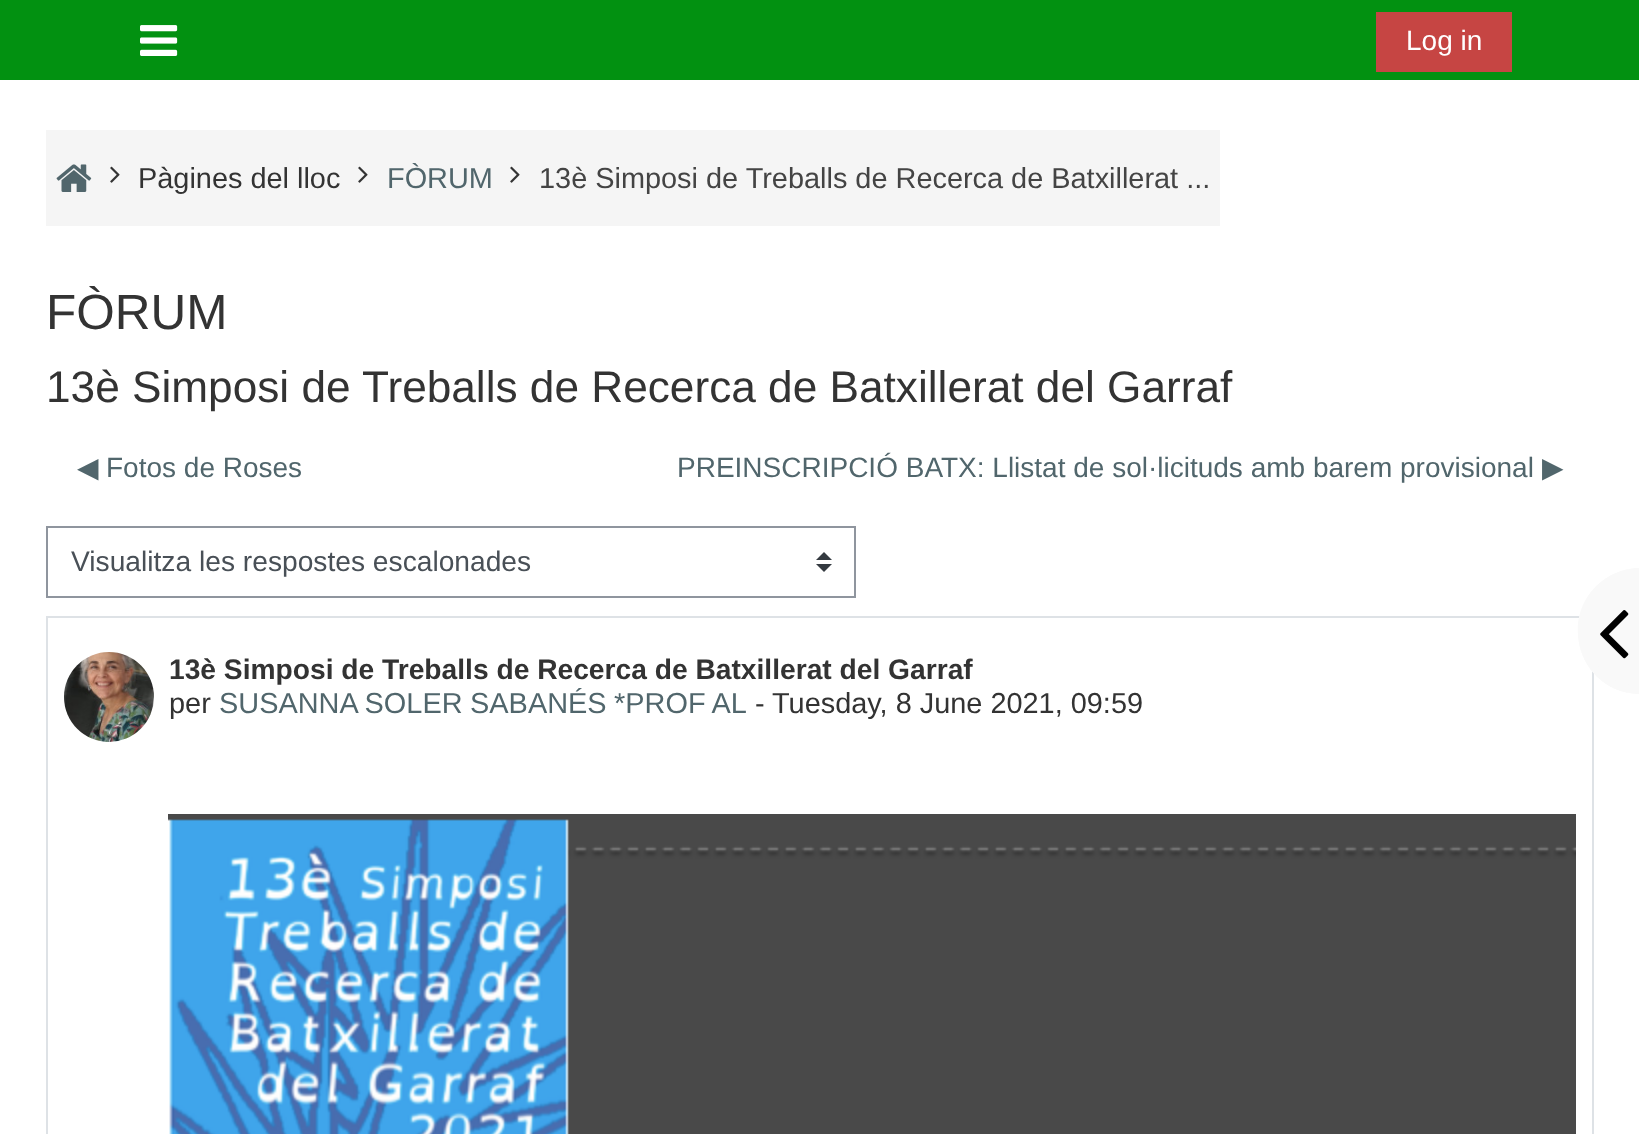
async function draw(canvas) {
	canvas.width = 1639;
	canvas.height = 1134;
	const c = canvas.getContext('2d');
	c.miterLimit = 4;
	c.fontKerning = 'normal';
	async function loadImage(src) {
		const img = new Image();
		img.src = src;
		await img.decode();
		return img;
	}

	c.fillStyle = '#fff';
	c.fillRect(0, 0, 1639, 1134);
	c.fillStyle = '#029111';
	c.fillRect(0, 0, 1639, 80);
	c.drawImage(await loadImage('img1.png'), 140, 25, 38, 31);
	c.fillStyle = '#c64543';
	c.fillRect(1376, 12, 136, 60);
	c.font = '28px Liberation Sans';
	c.fillStyle = '#fff';
	c.fillText('Log in', 1406, 50);
	c.fillStyle = '#f5f5f5';
	c.fillRect(46, 130, 1174, 96);
	c.drawImage(await loadImage('img2.png'), 56, 164, 36, 28);
	c.drawImage(await loadImage('img3.png'), 110, 166, 10, 17);
	c.font = '28.9px Liberation Sans';
	c.fillStyle = '#333';
	c.fillText('Pàgines del lloc', 138, 188);
	c.drawImage(await loadImage('img3.png'), 358, 166, 10, 17);
	c.fillStyle = '#51666c';
	c.fillText('FÒRUM', 387, 188);
	c.drawImage(await loadImage('img3.png'), 510, 166, 10, 17);
	c.fillStyle = '#444';
	c.fillText('13è Simposi de Treballs de Recerca de Batxillerat ...', 539, 188);
	c.font = '49.5px Liberation Sans';
	c.fillStyle = '#333';
	c.fillText('FÒRUM', 46, 329);
	c.font = '44.2px Liberation Sans';
	c.fillText('13è Simposi de Treballs de Recerca de Batxillerat del Garraf', 46, 402);
	c.font = '28px DejaVu Sans';
	c.fillStyle = '#51666c';
	c.fillText('◀︎', 77, 477);
	c.font = '28px Liberation Sans';
	c.fillText('Fotos de Roses', 106, 477);
	c.fillText('PREINSCRIPCIÓ BATX: Llistat de sol·licituds amb barem provisional', 677, 477);
	c.font = '28px DejaVu Sans';
	c.fillText('▶︎', 1542, 477);
	c.fillStyle = '#343a40';
	c.beginPath();
	c.moveTo(824, 552);
	c.lineTo(816, 560);
	c.lineTo(832, 560);
	c.closePath();
	c.moveTo(824, 572);
	c.lineTo(816, 564);
	c.lineTo(832, 564);
	c.closePath();
	c.fill();
	c.strokeStyle = '#8f959e';
	c.lineWidth = 2;
	c.strokeRect(47, 527, 808, 70);
	c.font = '28.2px Liberation Sans';
	c.fillStyle = '#495057';
	c.fillText('Visualitza les respostes escalonades', 71, 571);
	c.strokeStyle = '#dee2e6';
	c.strokeRect(47, 617, 1546, 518);
	c.drawImage(await loadImage('img4.png'), 64, 652, 90, 90);
	c.font = 'bold 28.2px Liberation Sans';
	c.fillStyle = '#333';
	c.fillText('13è Simposi de Treballs de Recerca de Batxillerat del Garraf', 169, 679);
	c.font = '28.9px Liberation Sans';
	c.fillText('per', 169, 713);
	c.wordSpacing = '-0.5px';
	c.fillStyle = '#51666c';
	c.fillText('SUSANNA SOLER SABANÉS *PROF AL', 219, 713);
	c.wordSpacing = '0px';
	c.fillStyle = '#333';
	c.fillText('-', 755, 713);
	c.fillText('Tuesday, 8 June 2021, 09:59', 772, 713);
	c.drawImage(await loadImage('img5.png'), 168, 814, 1408, 320);
	c.fillStyle = '#f9f9f9';
	c.beginPath();
	c.moveTo(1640, 568);
	c.lineTo(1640, 694);
	c.bezierCurveTo(1606, 694, 1578, 666, 1578, 632);
	c.lineTo(1578, 630);
	c.bezierCurveTo(1578, 596, 1606, 568, 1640, 568);
	c.closePath();
	c.fill();
	c.beginPath();
	c.moveTo(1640, 568);
	c.lineTo(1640, 694);
	c.bezierCurveTo(1578, 694, 1555, 613, 1605, 579);
	c.bezierCurveTo(1616, 572, 1628, 568, 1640, 568);
	c.closePath();
	c.moveTo(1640, 576);
	c.lineTo(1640, 686);
	c.bezierCurveTo(1629, 686, 1619, 683, 1610, 677);
	c.bezierCurveTo(1566, 647, 1586, 576, 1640, 576);
	c.closePath();
	c.fill('evenodd');
	c.drawImage(await loadImage('img6.png'), 1600, 610, 29, 49);
}

draw(document.querySelector('canvas'));
